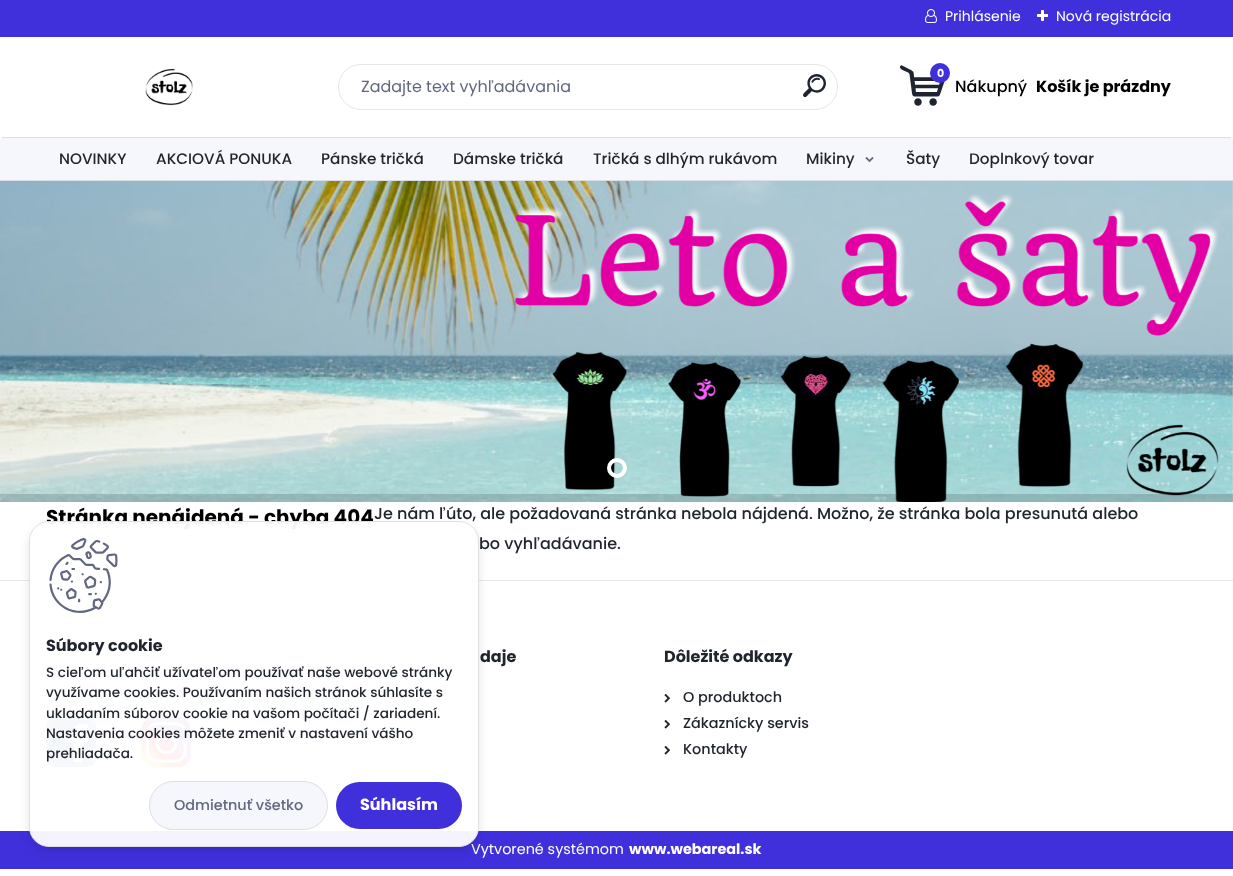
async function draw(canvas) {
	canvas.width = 1233;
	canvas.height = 876;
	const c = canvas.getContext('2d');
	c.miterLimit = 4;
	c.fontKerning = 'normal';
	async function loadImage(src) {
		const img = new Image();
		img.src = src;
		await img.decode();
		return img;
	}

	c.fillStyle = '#fff';
	c.fillRect(0, 0, 1233, 876);
	c.fillStyle = '#4030dc';
	c.fillRect(0, 0, 1233, 37);
	c.drawImage(await loadImage('img1.png'), 925, 9, 12, 14);
	c.font = '14px Poppins';
	c.fillStyle = '#fff';
	c.fillText('Prihlásenie', 945, 21);
	c.drawImage(await loadImage('img2.png'), 1037, 10, 11, 11);
	c.fillText('Nová registrácia', 1056, 21);
	c.drawImage(await loadImage('img3.png'), 145, 69, 48, 37);
	c.beginPath();
	c.roundRect(338.5, 64.5, 499, 45, 22.5);
	c.strokeStyle = '#e6e6e6';
	c.stroke();
	c.font = '16px Poppins';
	c.fillStyle = '#626780';
	c.fillText('Zadajte text vyhľadávania', 361, 92);
	c.drawImage(await loadImage('img4.png'), 803, 74, 23, 23);
	c.drawImage(await loadImage('img5.png'), 900, 65, 45, 41);
	c.fillStyle = '#4030dc';
	c.beginPath();
	c.arc(940, 73, 10, 0, 2 * Math.PI);
	c.fill();
	c.font = 'bold 11px Poppins';
	c.fillStyle = '#fff';
	c.fillText('0', 937, 77);
	c.font = '500 16px Poppins';
	c.fillStyle = '#000';
	c.fillText('Nákupný', 955, 92);
	c.font = 'bold 16px Poppins';
	c.fillText('Košík je prázdny', 1036, 92);
	c.fillStyle = '#f6f7fc';
	c.beginPath();
	c.roundRect(0, 137, 1233, 44, [4, 4, 0, 0]);
	c.fill();
	c.fillStyle = '#0000001a';
	c.fillRect(2, 137, 1229, 1);
	c.fillStyle = '#dddee3';
	c.fillRect(0, 180, 1233, 1);
	c.font = '500 15.25px Poppins';
	c.fillStyle = '#1f242d';
	for (const [text, x, y] of [
		['NOVINKY', 59, 164],
		['AKCIOVÁ PONUKA', 156, 164],
		['Pánske tričká', 321, 164],
		['Dámske tričká', 453, 164],
		['Tričká s dlhým rukávom', 593, 164],
		['Mikiny', 806, 164],
	]) {
		c.fillText(text, x, y);
	}
	c.drawImage(await loadImage('img6.png'), 865, 157, 9, 6);
	c.fillText('Šaty', 906, 164);
	c.fillText('Doplnkový tovar', 969, 164);
	c.drawImage(await loadImage('img7.png'), 0, 181, 1233, 321);
	c.beginPath();
	c.arc(617, 468, 8, 0, 2 * Math.PI);
	c.strokeStyle = '#fff';
	c.lineWidth = 4;
	c.stroke();
	c.save();
	c.beginPath();
	c.moveTo(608, 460);
	c.lineTo(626, 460);
	c.lineTo(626, 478);
	c.lineTo(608, 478);
	c.closePath();
	c.moveTo(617, 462);
	c.bezierCurveTo(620.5, 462, 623, 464.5, 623, 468);
	c.bezierCurveTo(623, 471.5, 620.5, 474, 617, 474);
	c.bezierCurveTo(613.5, 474, 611, 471.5, 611, 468);
	c.bezierCurveTo(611, 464.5, 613.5, 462, 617, 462);
	c.closePath();
	c.clip('evenodd');
	c.fillStyle = '#fff';
	c.filter = 'blur(0.5px)';
	c.beginPath();
	c.roundRect(611, 463, 12, 12, 6);
	c.fill();
	c.filter = 'none';
	c.restore();
	c.fillStyle = '#00000026';
	c.fillRect(0, 494, 1233, 8);
	c.font = 'bold 20px Poppins';
	c.fillStyle = '#000';
	c.fillText('Stránka nenájdená - chyba 404', 46, 524);
	c.font = '500 16px Poppins';
	c.fillStyle = '#1f242d';
	c.fillText('Je nám ľúto, ale požadovaná stránka nebola nájdená. Možno, že stránka bola presunutá alebo', 374, 519);
	c.fillText('bo vyhľadávanie.', 479, 549);
	c.fillStyle = '#e6e6e6';
	c.fillRect(0, 580, 1233, 1);
	c.font = 'bold 16px Poppins';
	c.fillStyle = '#1f242d';
	c.fillText('daje', 480, 662);
	c.fillText('Dôležité odkazy', 664, 662);
	c.drawImage(await loadImage('img8.png'), 664, 694, 6, 9);
	c.font = '500 14.4px Poppins';
	c.fillText('O produktoch', 683, 702);
	c.drawImage(await loadImage('img8.png'), 664, 720, 6, 9);
	c.fillText('Zákaznícky servis', 683, 728);
	c.drawImage(await loadImage('img8.png'), 664, 746, 6, 9);
	c.fillText('Kontakty', 683, 754);
	c.drawImage(await loadImage('img9.png'), 46, 717, 50, 50);
	c.drawImage(await loadImage('img10.png'), 141, 717, 50, 50);
	c.fillStyle = '#4030dc';
	c.fillRect(0, 831, 1233, 38);
	c.font = '14.4px Poppins';
	c.fillStyle = '#fff';
	c.fillText('Vytvorené systémom', 471, 854);
	c.font = 'bold 14.4px Poppins';
	c.fillText('www.webareal.sk', 629, 854);
	c.save();
	c.beginPath();
	c.moveTo(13, 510);
	c.lineTo(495, 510);
	c.lineTo(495, 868);
	c.lineTo(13, 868);
	c.closePath();
	c.moveTo(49, 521);
	c.lineTo(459, 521);
	c.bezierCurveTo(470, 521, 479, 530, 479, 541);
	c.lineTo(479, 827);
	c.bezierCurveTo(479, 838, 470, 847, 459, 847);
	c.lineTo(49, 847);
	c.bezierCurveTo(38, 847, 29, 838, 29, 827);
	c.lineTo(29, 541);
	c.bezierCurveTo(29, 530, 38, 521, 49, 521);
	c.closePath();
	c.clip('evenodd');
	c.fillStyle = '#0000001a';
	c.filter = 'blur(5px)';
	c.beginPath();
	c.roundRect(29, 526, 450, 326, 20);
	c.fill();
	c.filter = 'none';
	c.restore();
	c.fillStyle = '#fffffff2';
	c.beginPath();
	c.roundRect(29.5, 521.5, 449, 325, 19.5);
	c.fill();
	c.strokeStyle = '#e0e0e0';
	c.lineWidth = 1;
	c.stroke();
	c.drawImage(await loadImage('img11.png'), 49, 538, 69, 75);
	c.font = 'bold 16px Poppins';
	c.fillStyle = '#1f242d';
	c.fillText('Súbory cookie', 46, 651);
	c.font = '500 13.6px Poppins';
	for (const [text, x, y] of [
		['S cieľom uľahčiť užívateľom používať naše webové stránky', 46, 677],
		['využívame cookies. Používaním našich stránok súhlasíte s', 46, 697],
		['ukladaním súborov cookie na vašom počítači / zariadení.', 46, 718],
		['Nastavenia cookies môžete zmeniť v nastavení vášho', 46, 738],
		['prehliadača.', 46, 758],
	]) {
		c.fillText(text, x, y);
	}
	c.fillStyle = '#f6f7fc';
	c.beginPath();
	c.roundRect(149, 781, 179, 49, 24.5);
	c.fill();
	c.beginPath();
	c.roundRect(149.5, 781.5, 178, 48, 24);
	c.strokeStyle = '#0000001a';
	c.stroke();
	c.font = '500 14.4px Poppins';
	c.fillStyle = '#626780';
	c.fillText('Odmietnuť všetko', 174, 810);
	c.fillStyle = '#4030dc';
	c.beginPath();
	c.roundRect(336, 782, 126, 47, 23.5);
	c.fill();
	c.font = 'bold 16px Poppins';
	c.fillStyle = '#fff';
	c.fillText('Súhlasím', 360, 810);
}

draw(document.querySelector('canvas'));
